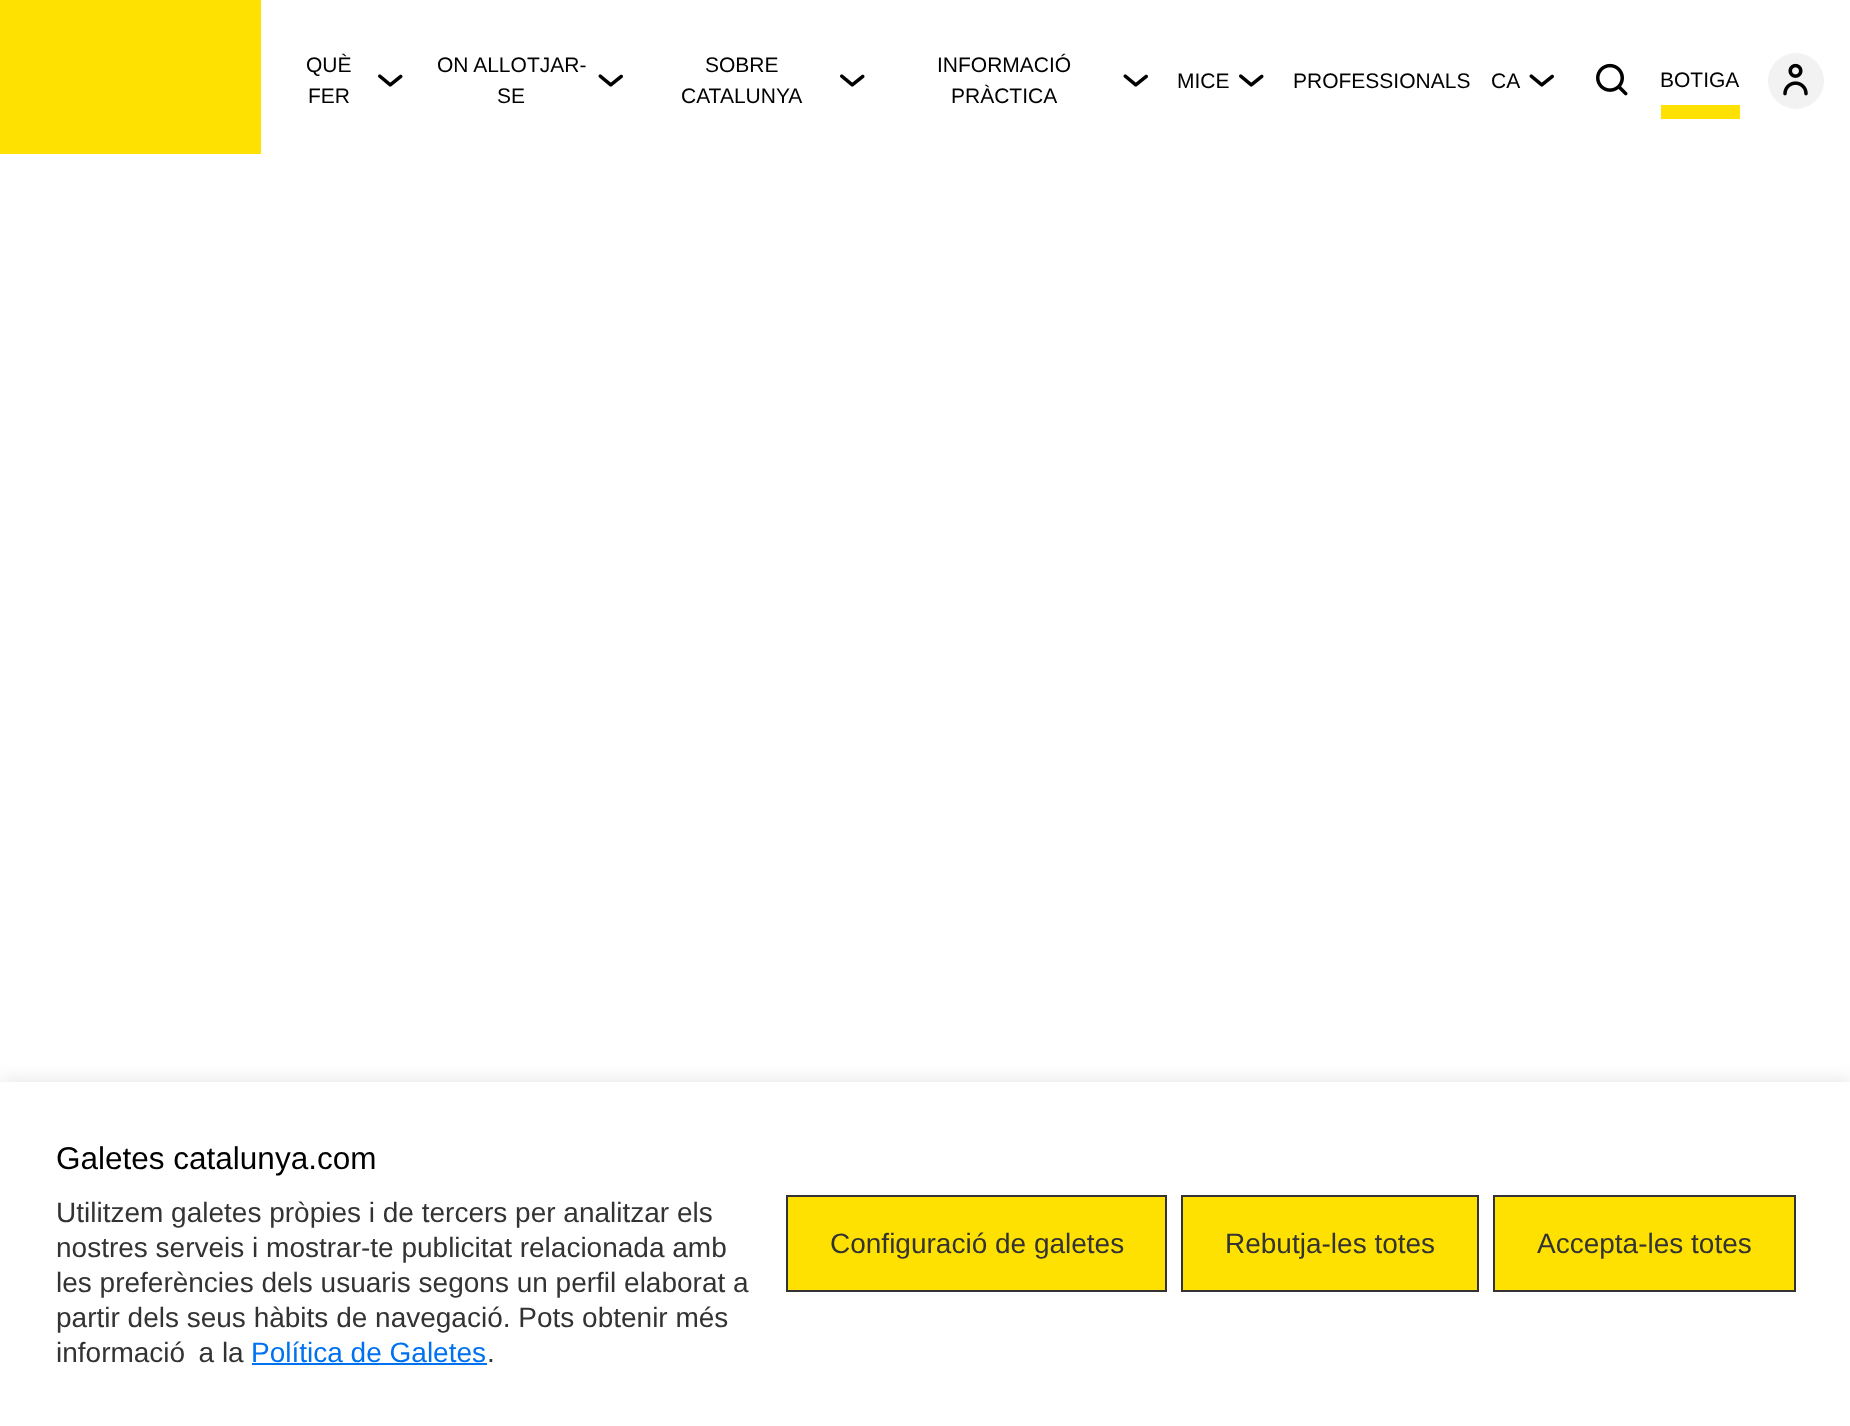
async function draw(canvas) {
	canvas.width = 1850;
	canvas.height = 1426;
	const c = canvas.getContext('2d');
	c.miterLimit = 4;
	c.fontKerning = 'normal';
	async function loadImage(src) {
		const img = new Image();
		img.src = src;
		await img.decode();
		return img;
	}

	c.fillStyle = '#fff';
	c.fillRect(0, 0, 1850, 1426);
	c.fillStyle = '#ffe100';
	c.fillRect(0, 0, 261, 154);
	c.font = '21px Liberation Sans';
	c.fillStyle = '#000';
	c.fillText('QUÈ', 306, 72);
	c.drawImage(await loadImage('img1.png'), 378, 74, 25, 13);
	c.fillText('FER', 308, 103);
	c.fillText('ON ALLOTJAR-', 437, 72);
	c.drawImage(await loadImage('img2.png'), 598, 74, 25, 13);
	c.fillText('SE', 497, 103);
	c.fillText('SOBRE', 705, 72);
	c.drawImage(await loadImage('img1.png'), 840, 74, 25, 13);
	c.fillText('CATALUNYA', 681, 103);
	c.fillText('INFORMACIÓ', 937, 72);
	c.drawImage(await loadImage('img2.png'), 1123, 74, 25, 13);
	c.fillText('PRÀCTICA', 951, 103);
	c.fillText('MICE', 1177, 88);
	c.drawImage(await loadImage('img1.png'), 1239, 74, 25, 13);
	c.fillText('PROFESSIONALS', 1293, 88);
	c.fillText('CA', 1491, 88);
	c.drawImage(await loadImage('img2.png'), 1529, 74, 25, 13);
	c.drawImage(await loadImage('img3.png'), 1596, 63, 32, 33);
	c.fillStyle = '#ffe100';
	c.fillRect(1661, 105, 79, 14);
	c.fillStyle = '#000';
	c.fillText('BOTIGA', 1660, 87);
	c.fillStyle = '#f2f2f2';
	c.beginPath();
	c.arc(1796, 81, 28, 0, 2 * Math.PI);
	c.fill();
	c.drawImage(await loadImage('img4.png'), 1783, 63, 25, 33);
	c.fillStyle = '#acabab4d';
	c.filter = 'blur(9px)';
	c.beginPath();
	c.rect(0, 1080, 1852, 345);
	c.fill();
	c.filter = 'none';
	c.fillStyle = '#fff';
	c.fillRect(0, 1082, 1850, 344);
	c.font = '31.5px Liberation Sans';
	c.fillStyle = '#000';
	c.fillText('Galetes catalunya.com', 56, 1169);
	c.font = '28px Liberation Sans';
	c.fillStyle = '#333';
	for (const [text, x, y] of [
		['Utilitzem galetes pròpies i de tercers per analitzar els', 56, 1222],
		['nostres serveis i mostrar-te publicitat relacionada amb', 56, 1257],
		['les preferències dels usuaris segons un perfil elaborat a', 56, 1292],
		['partir dels seus hàbits de navegació. Pots obtenir més', 56, 1327],
		['informació  a la', 56, 1362],
	]) {
		c.fillText(text, x, y);
	}
	c.fillStyle = '#0072f0';
	c.fillText('Política de Galetes', 251, 1362);
	c.fillRect(252, 1363, 235, 2);
	c.fillStyle = '#333';
	c.fillText('.', 487, 1362);
	c.fillStyle = '#ffe100';
	c.beginPath();
	c.rect(787, 1196, 379, 95);
	c.fill();
	c.strokeStyle = '#333';
	c.lineWidth = 2;
	c.stroke();
	c.fillStyle = '#333';
	c.fillText('Configuració de galetes', 830, 1253);
	c.fillStyle = '#ffe100';
	c.beginPath();
	c.rect(1182, 1196, 296, 95);
	c.fill();
	c.stroke();
	c.fillStyle = '#333';
	c.fillText('Rebutja-les totes', 1225, 1253);
	c.fillStyle = '#ffe100';
	c.beginPath();
	c.rect(1494, 1196, 301, 95);
	c.fill();
	c.stroke();
	c.fillStyle = '#333';
	c.fillText('Accepta-les totes', 1537, 1253);
}

draw(document.querySelector('canvas'));
